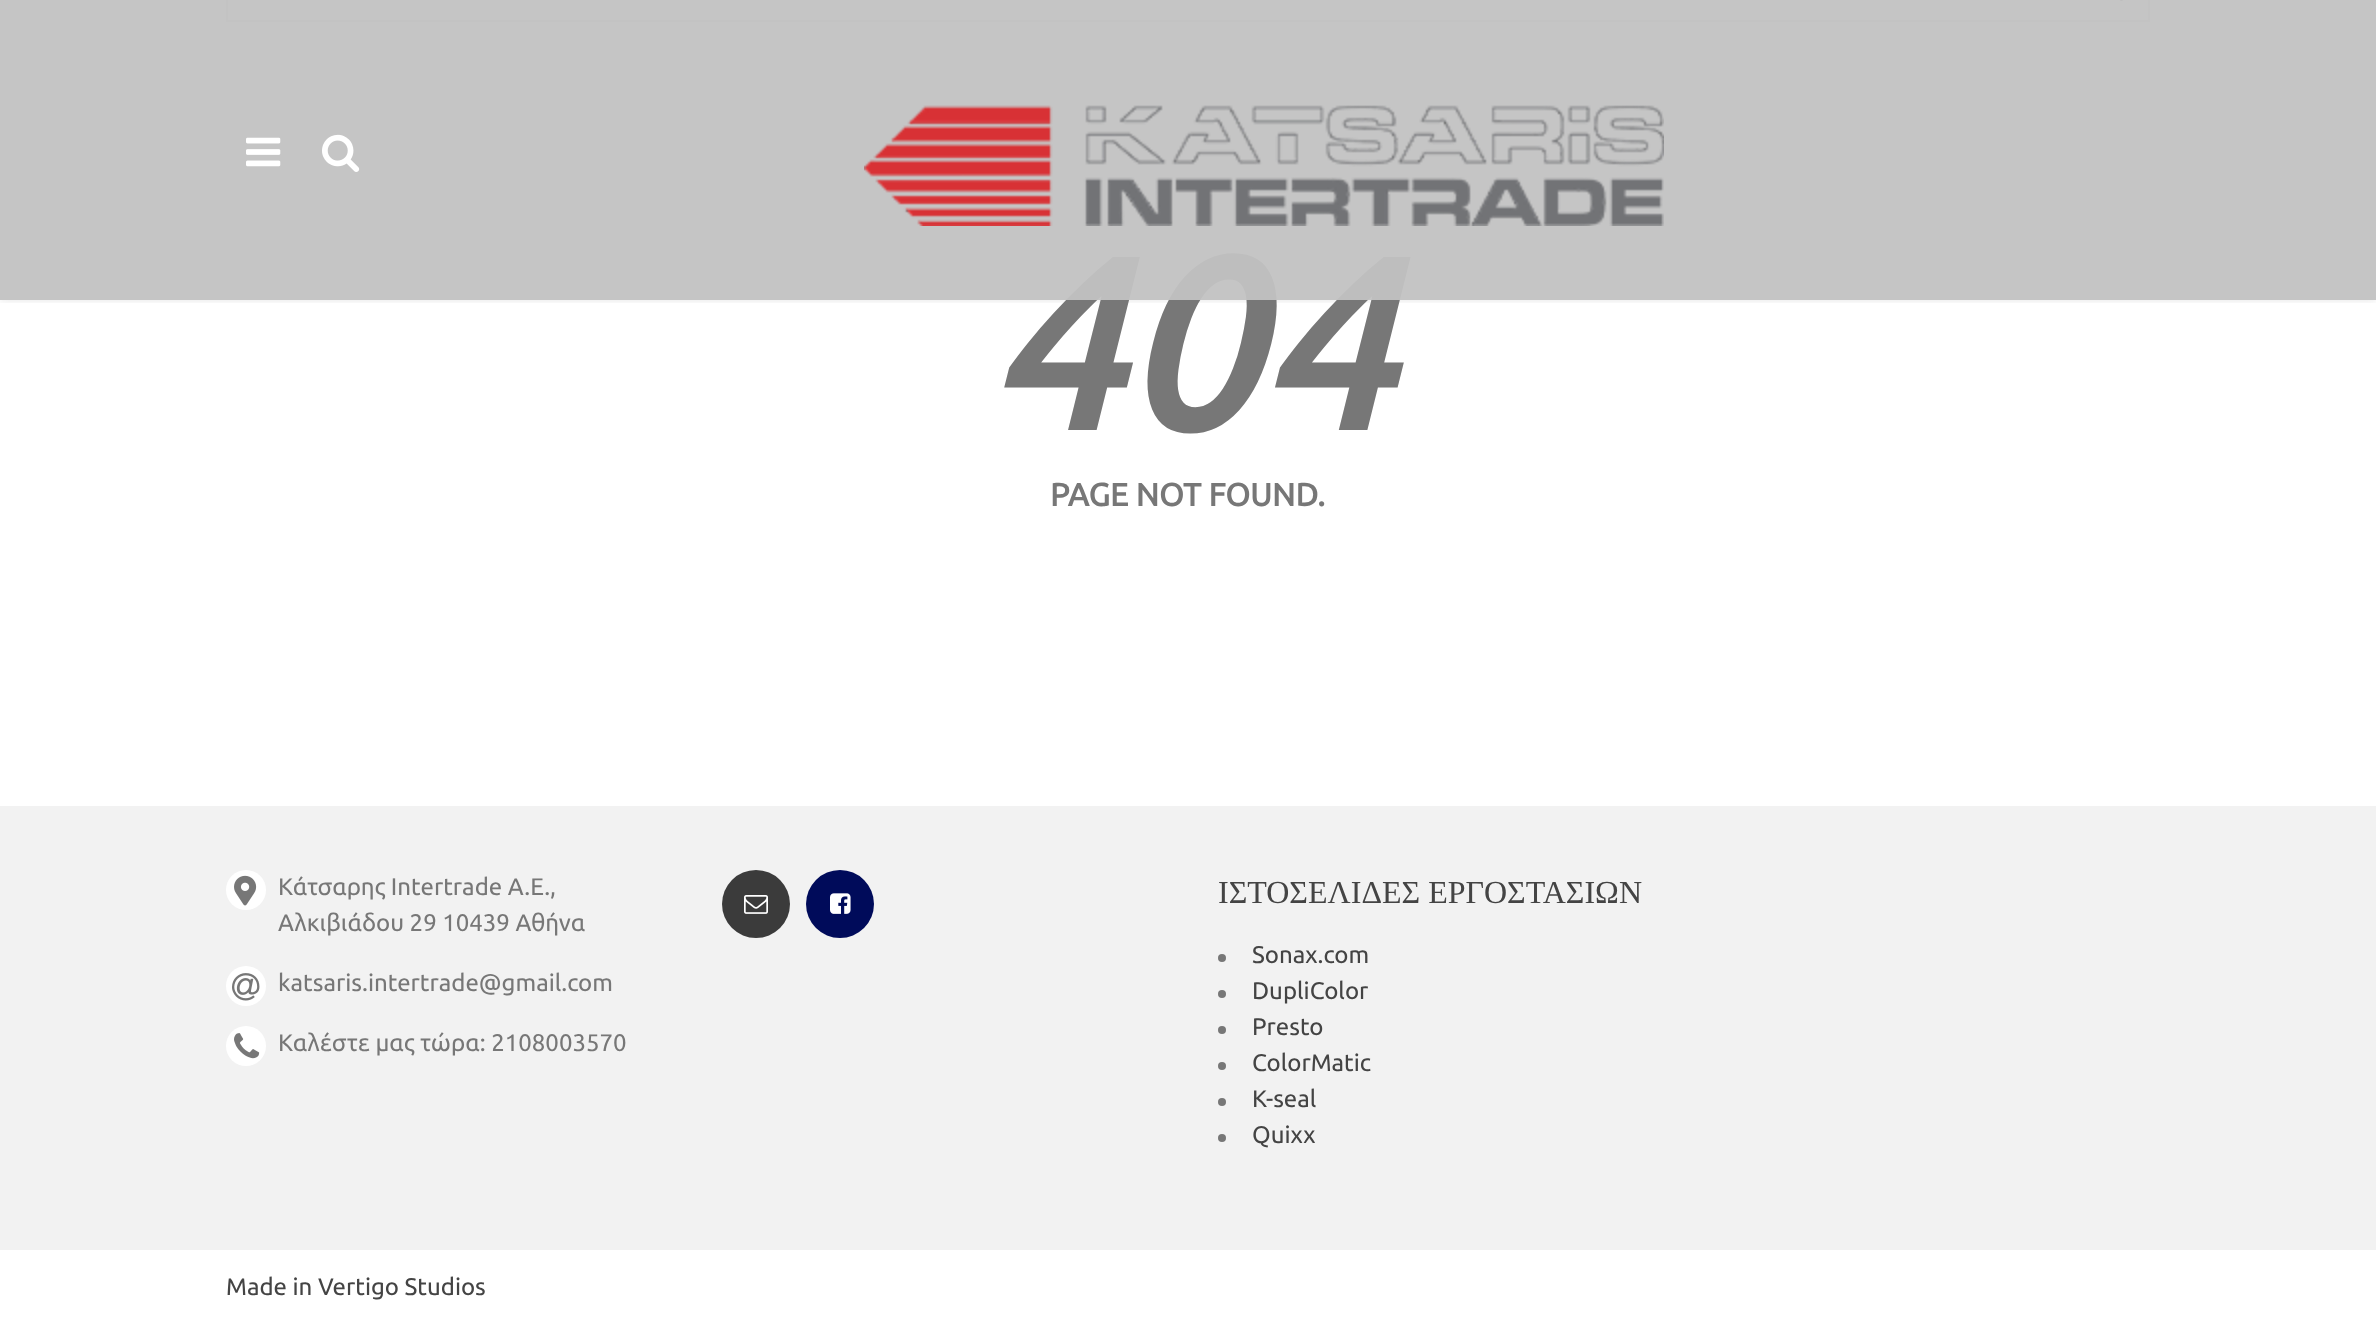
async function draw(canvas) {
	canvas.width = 2376;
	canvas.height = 1325;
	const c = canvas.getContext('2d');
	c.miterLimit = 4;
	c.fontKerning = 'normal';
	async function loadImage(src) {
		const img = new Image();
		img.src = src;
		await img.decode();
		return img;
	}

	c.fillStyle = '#fff';
	c.fillRect(0, 0, 2376, 1325);
	c.strokeStyle = '#d9d9d9';
	c.lineWidth = 2;
	c.strokeRect(227, -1, 1922, 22);
	c.drawImage(await loadImage('img4.png'), 2119, 0, 4, 1);
	c.save();
	c.beginPath();
	c.rect(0, 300, 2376, 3);
	c.clip();
	c.fillStyle = '#0000001a';
	c.filter = 'blur(4px)';
	c.beginPath();
	c.rect(0, 0, 2376, 300);
	c.fill();
	c.filter = 'none';
	c.restore();
	c.font = 'italic bold 240px Ubuntu';
	c.fillStyle = '#777';
	c.fillText('404', 985, 430);
	c.fillStyle = '#c2c2c2f2';
	c.fillRect(0, 0, 2376, 300);
	c.drawImage(await loadImage('img1.png'), 246, 137, 35, 30);
	c.drawImage(await loadImage('img2.png'), 322, 134, 38, 38);
	c.drawImage(await loadImage('img3.png'), 864, 105, 800, 121);
	c.font = 'bold 32px Ubuntu';
	c.fillStyle = '#777';
	c.fillText('PAGE NOT FOUND.', 1050, 506);
	c.fillStyle = '#f2f2f2';
	c.fillRect(0, 806, 2376, 444);
	c.fillStyle = '#fff';
	c.beginPath();
	c.arc(246, 890, 20, 0, 2 * Math.PI);
	c.fill();
	c.drawImage(await loadImage('img5.png'), 234, 875, 23, 31);
	c.font = '24px Ubuntu';
	c.fillStyle = '#777';
	c.fillText('Κάτσαρης Intertrade A.E.,', 278, 895);
	c.fillText('Αλκιβιάδου 29 10439 Αθήνα', 278, 931);
	c.fillStyle = '#fff';
	c.beginPath();
	c.arc(246, 986, 20, 0, 2 * Math.PI);
	c.fill();
	c.drawImage(await loadImage('img6.png'), 232, 973, 28, 28);
	c.fillStyle = '#777';
	c.fillText('katsaris.intertrade@gmail.com', 278, 991);
	c.fillStyle = '#fff';
	c.beginPath();
	c.arc(246, 1046, 20, 0, 2 * Math.PI);
	c.fill();
	c.drawImage(await loadImage('img7.png'), 234, 1033, 26, 26);
	c.fillStyle = '#777';
	c.fillText('Καλέστε μας τώρα: 2108003570', 278, 1051);
	c.fillStyle = '#3b3b3b';
	c.beginPath();
	c.arc(756, 904, 34, 0, 2 * Math.PI);
	c.fill();
	c.drawImage(await loadImage('img8.png'), 744, 895, 24, 19);
	c.fillStyle = '#000b5a';
	c.beginPath();
	c.arc(840, 904, 34, 0, 2 * Math.PI);
	c.fill();
	c.drawImage(await loadImage('img9.png'), 830, 893, 21, 21);
	c.font = '32px Liberation Serif';
	c.fillStyle = '#444';
	c.fillText('ΙΣΤΟΣΕΛΙΔΕΣ ΕΡΓΟΣΤΑΣΙΩΝ', 1218, 903);
	c.fillStyle = '#777';
	c.beginPath();
	c.arc(1222, 958, 4, 0, 2 * Math.PI);
	c.fill();
	c.font = '24px Ubuntu';
	c.fillStyle = '#444';
	c.fillText('Sonax.com', 1252, 963);
	c.fillStyle = '#777';
	c.beginPath();
	c.arc(1222, 994, 4, 0, 2 * Math.PI);
	c.fill();
	c.fillStyle = '#444';
	c.fillText('DupliColor', 1252, 999);
	c.fillStyle = '#777';
	c.beginPath();
	c.arc(1222, 1030, 4, 0, 2 * Math.PI);
	c.fill();
	c.fillStyle = '#444';
	c.fillText('Presto', 1252, 1035);
	c.fillStyle = '#777';
	c.beginPath();
	c.arc(1222, 1066, 4, 0, 2 * Math.PI);
	c.fill();
	c.fillStyle = '#444';
	c.fillText('ColorMatic', 1252, 1071);
	c.fillStyle = '#777';
	c.beginPath();
	c.arc(1222, 1102, 4, 0, 2 * Math.PI);
	c.fill();
	c.fillStyle = '#444';
	c.fillText('K-seal', 1252, 1107);
	c.fillStyle = '#777';
	c.beginPath();
	c.arc(1222, 1138, 4, 0, 2 * Math.PI);
	c.fill();
	c.fillStyle = '#444';
	c.fillText('Quixx', 1252, 1143);
	c.fillText('Made in Vertigo Studios', 226, 1295);
}

draw(document.querySelector('canvas'));
